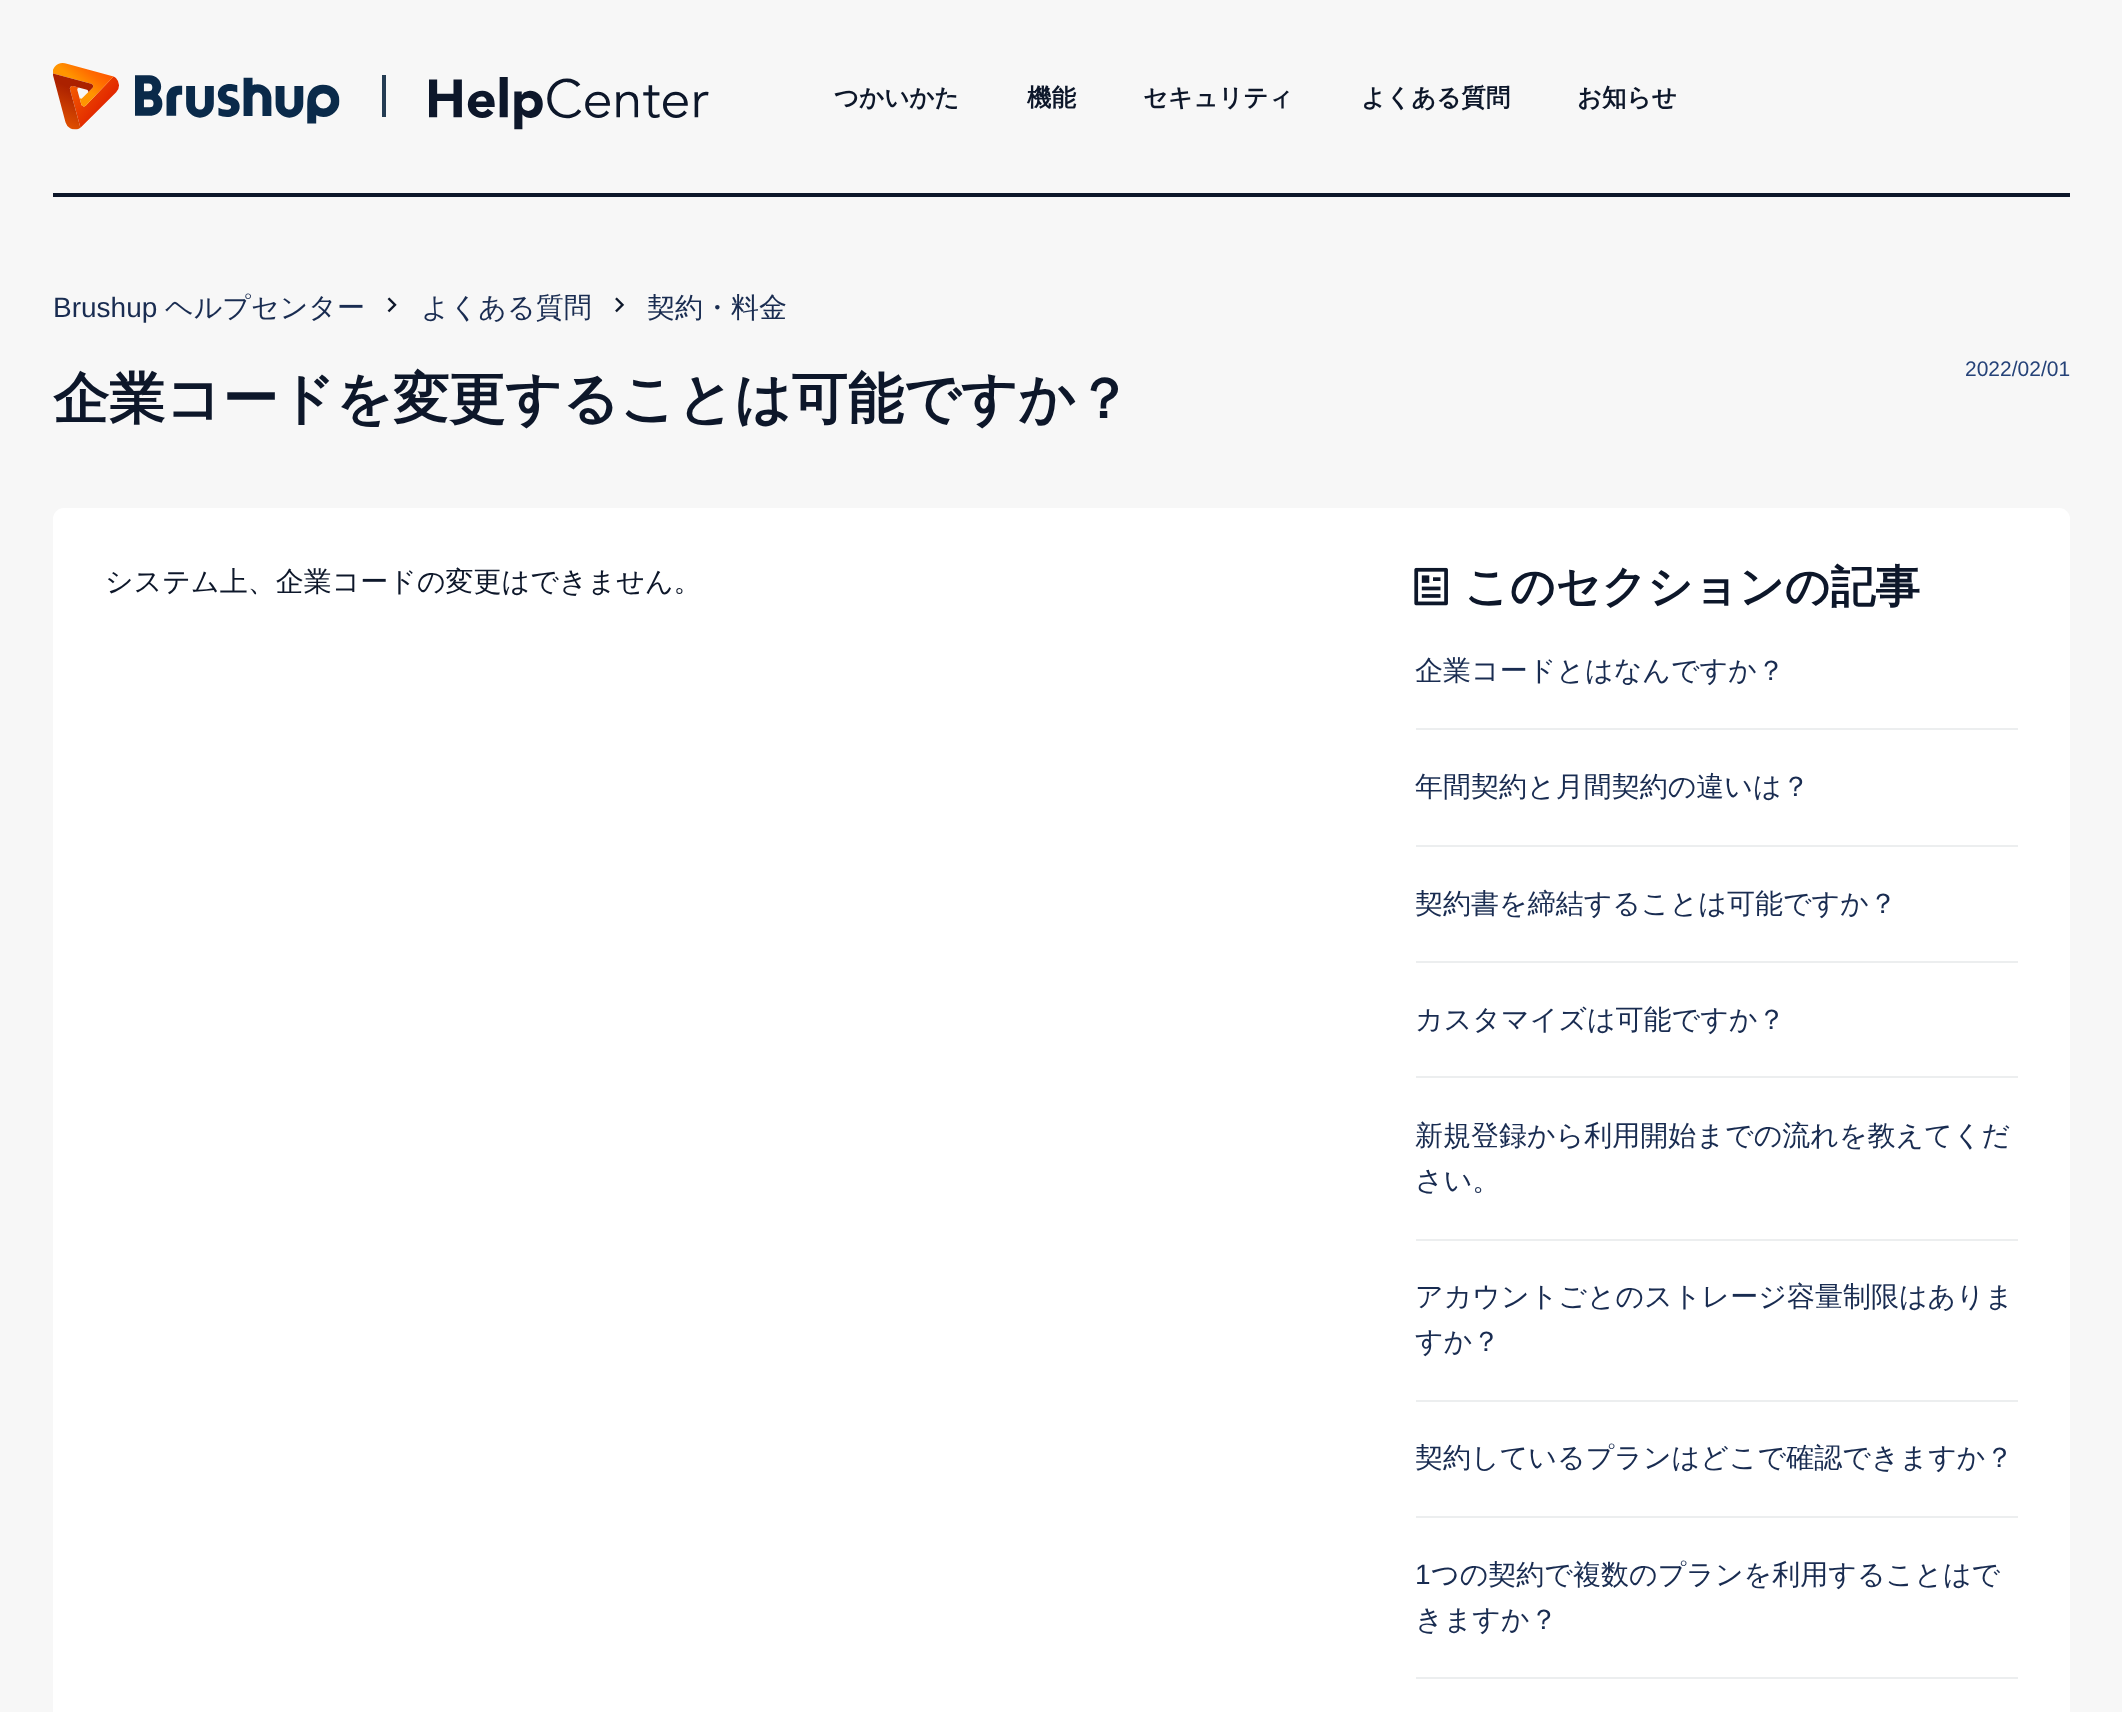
async function draw(canvas) {
	canvas.width = 2122;
	canvas.height = 1712;
	const c = canvas.getContext('2d');
	c.miterLimit = 4;
	c.fontKerning = 'normal';
	async function loadImage(src) {
		const img = new Image();
		img.src = src;
		await img.decode();
		return img;
	}

	c.fillStyle = '#f7f7f7';
	c.fillRect(0, 0, 2122, 1712);
	c.fillStyle = '#0d172a';
	c.fillRect(53, 193, 2017, 4);
	c.drawImage(await loadImage('img1.png'), 53, 63, 287, 67);
	c.fillStyle = '#243c53';
	c.fillRect(382, 75, 4, 42);
	c.drawImage(await loadImage('img2.png'), 429, 77, 280, 53);
	c.font = 'bold 24.5px WenQuanYi Zen Hei';
	c.fillStyle = '#0d172a';
	for (const [text, x, y] of [
		['つかいかた', 834, 106],
		['機能', 1027, 106],
		['セキュリティ', 1143, 106],
		['よくある質問', 1361, 106],
		['お知らせ', 1577, 106],
	]) {
		c.fillText(text, x, y);
	}
	c.font = '28px Liberation Sans';
	c.fillStyle = '#192c51';
	c.fillText('Brushup', 53, 317);
	c.font = '500 28px WenQuanYi Zen Hei';
	c.fillText('ヘルプセンター', 165, 317);
	c.drawImage(await loadImage('img3.png'), 387, 297, 10, 16);
	c.fillText('よくある質問', 421, 317);
	c.drawImage(await loadImage('img4.png'), 615, 297, 10, 16);
	c.fillText('契約・料金', 647, 317);
	c.font = 'bold 56px WenQuanYi Zen Hei';
	c.fillStyle = '#0d172a';
	c.fillText('企業コードを変更することは可能ですか？', 53, 418);
	c.font = '21px Liberation Sans';
	c.fillStyle = '#254278';
	c.fillText('2022/02/01', 1965, 376);
	c.fillStyle = '#fff';
	c.beginPath();
	c.roundRect(53, 508, 2017, 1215, 11);
	c.fill();
	c.font = '500 28px WenQuanYi Zen Hei';
	c.fillStyle = '#0d172a';
	c.fillText('システム上、企業コードの変更はできません。', 105, 591);
	c.drawImage(await loadImage('img5.png'), 1414, 567, 34, 39);
	c.font = 'bold 44.75px WenQuanYi Zen Hei';
	c.fillText('このセクションの記事', 1464, 602);
	c.fillStyle = '#eceeef';
	c.fillRect(1416, 728, 602, 2);
	c.font = '500 28px WenQuanYi Zen Hei';
	c.fillStyle = '#192c51';
	c.fillText('企業コードとはなんですか？', 1415, 680);
	c.fillStyle = '#eceeef';
	c.fillRect(1416, 845, 602, 2);
	c.fillStyle = '#192c51';
	c.fillText('年間契約と月間契約の違いは？', 1415, 796);
	c.fillStyle = '#eceeef';
	c.fillRect(1416, 961, 602, 2);
	c.fillStyle = '#192c51';
	c.fillText('契約書を締結することは可能ですか？', 1415, 913);
	c.fillStyle = '#eceeef';
	c.fillRect(1416, 1076, 602, 2);
	c.fillStyle = '#192c51';
	c.fillText('カスタマイズは可能ですか？', 1415, 1029);
	c.fillStyle = '#eceeef';
	c.fillRect(1416, 1239, 602, 2);
	c.fillStyle = '#192c51';
	c.fillText('新規登録から利用開始までの流れを教えてくだ', 1415, 1145);
	c.fillText('さい。', 1415, 1190);
	c.fillStyle = '#eceeef';
	c.fillRect(1416, 1400, 602, 2);
	c.fillStyle = '#192c51';
	c.fillText('アカウントごとのストレージ容量制限はありま', 1415, 1306);
	c.fillText('すか？', 1415, 1351);
	c.fillStyle = '#eceeef';
	c.fillRect(1416, 1516, 602, 2);
	c.fillStyle = '#192c51';
	c.fillText('契約しているプランはどこで確認できますか？', 1415, 1467);
	c.fillStyle = '#eceeef';
	c.fillRect(1416, 1677, 602, 2);
	c.font = '28px Liberation Sans';
	c.fillStyle = '#192c51';
	c.fillText('1', 1415, 1584);
	c.font = '500 28px WenQuanYi Zen Hei';
	c.fillText('つの契約で複数のプランを利用することはで', 1431, 1584);
	c.fillText('きますか？', 1415, 1629);
}

draw(document.querySelector('canvas'));
